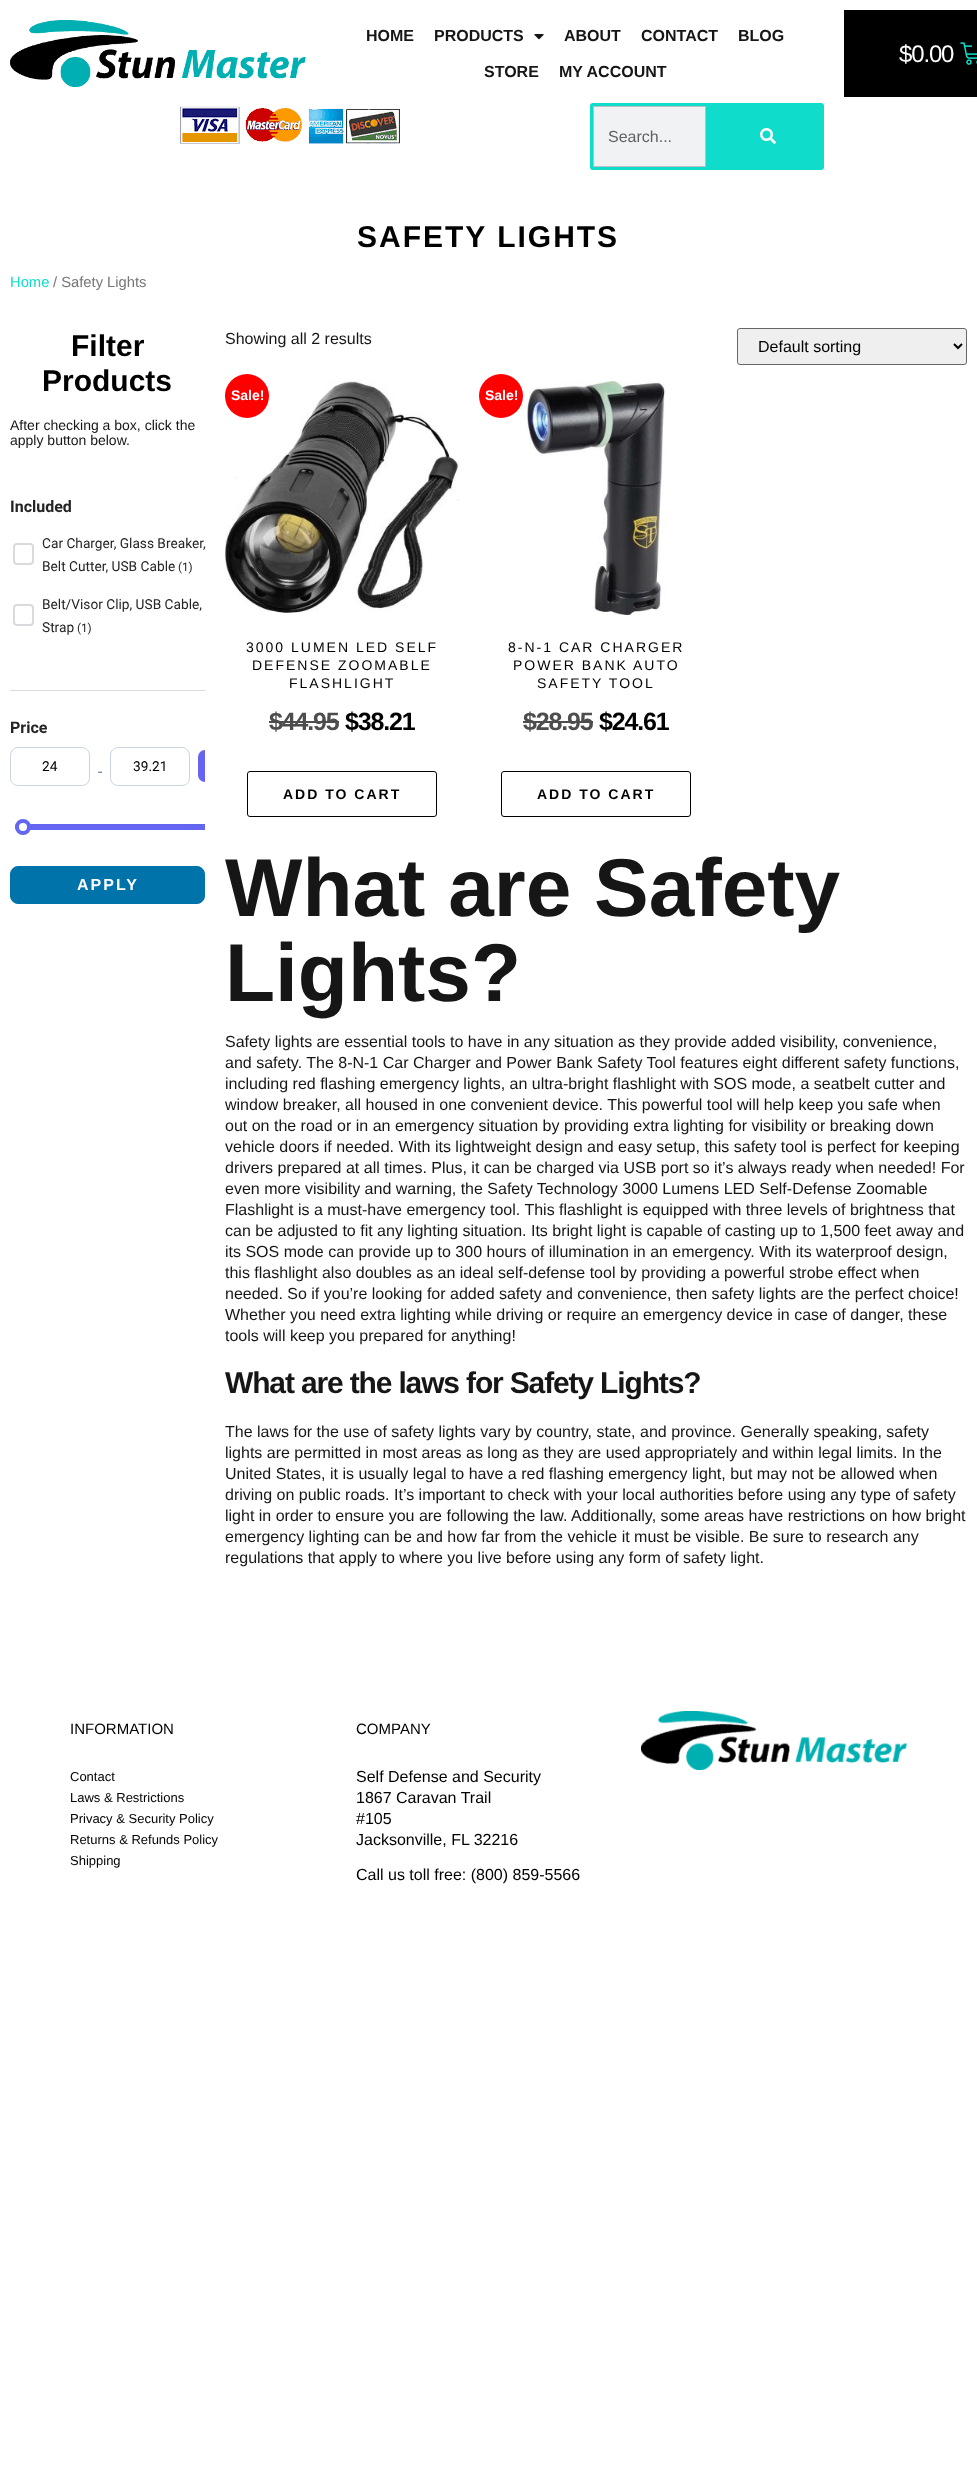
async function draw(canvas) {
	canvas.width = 977;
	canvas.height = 2475;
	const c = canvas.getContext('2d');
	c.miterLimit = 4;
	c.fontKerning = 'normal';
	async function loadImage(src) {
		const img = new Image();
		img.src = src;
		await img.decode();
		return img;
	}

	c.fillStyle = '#fff';
	c.fillRect(0, 0, 977, 2475);
	c.drawImage(await loadImage('img1.png'), 10, 20, 296, 67);
	c.font = 'bold 16px Liberation Sans';
	c.fillStyle = '#171616';
	c.fillText('HOME', 366, 41);
	c.fillText('PRODUCTS', 434, 41);
	c.drawImage(await loadImage('img2.png'), 534, 34, 10, 6);
	for (const [text, x, y] of [
		['ABOUT', 564, 41],
		['CONTACT', 641, 41],
		['BLOG', 738, 41],
		['STORE', 484, 77],
		['MY ACCOUNT', 559, 77],
	]) {
		c.fillText(text, x, y);
	}
	c.fillStyle = '#000';
	c.fillRect(844, 10, 133, 87);
	c.letterSpacing = '-1.15px';
	c.font = '24px Liberation Sans';
	c.fillStyle = '#fff';
	c.fillText('$0.00', 899, 62);
	c.drawImage(await loadImage('img3.png'), 960, 42, 17, 23);
	c.fillStyle = '#000';
	c.beginPath();
	c.roundRect(972, 37, 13, 16, 8);
	c.fill();
	c.drawImage(await loadImage('img4.png'), 180, 106, 220, 38);
	c.fillStyle = '#f1f2f3';
	c.beginPath();
	c.roundRect(591.5, 104.5, 231, 64, 1.5);
	c.fill();
	c.strokeStyle = '#10dccb';
	c.lineWidth = 3;
	c.stroke();
	c.strokeStyle = '#bbbfc4';
	c.lineWidth = 1;
	c.strokeRect(593.5, 106.5, 112, 60);
	c.letterSpacing = '0px';
	c.font = '16px Liberation Sans';
	c.fillStyle = '#606161';
	c.fillText('Search...', 608, 142);
	c.fillStyle = '#10dccb';
	c.fillRect(706, 106, 115, 61);
	c.drawImage(await loadImage('img5.png'), 760, 128, 16, 16);
	c.letterSpacing = '2px';
	c.font = 'bold 30px Liberation Sans';
	c.fillStyle = '#000';
	c.fillText('SAFETY LIGHTS', 357, 247);
	c.letterSpacing = '0px';
	c.font = '14.75px Liberation Sans';
	c.fillStyle = '#10dccb';
	c.fillText('Home', 10, 287);
	c.fillStyle = '#767676';
	c.fillText('/ Safety Lights', 53, 287);
	c.font = 'bold 30px Liberation Sans';
	c.fillStyle = '#000';
	c.fillText('Filter', 71, 356);
	c.fillText('Products', 42, 391);
	c.font = '14px Liberation Sans';
	c.fillStyle = '#171616';
	c.fillText('After checking a box, click the', 10, 430);
	c.fillText('apply button below.', 10, 445);
	c.fillStyle = '#d9dadd';
	c.fillRect(10, 690, 195, 1);
	c.font = 'bold 16px Roboto';
	c.fillStyle = '#252525';
	c.fillText('Included', 10, 512);
	c.beginPath();
	c.roundRect(14, 544, 19, 20, 3);
	c.strokeStyle = '#d9dadd';
	c.lineWidth = 2;
	c.stroke();
	c.font = '14px Roboto';
	c.fillText('Car Charger, Glass Breaker,', 42, 548);
	c.fillText('Belt Cutter, USB Cable', 42, 571);
	c.font = '12px Roboto';
	c.fillText('(1)', 178, 571);
	c.beginPath();
	c.roundRect(14, 605, 19, 20, 3);
	c.stroke();
	c.font = '14px Roboto';
	c.fillText('Belt/Visor Clip, USB Cable,', 42, 609);
	c.fillText('Strap', 42, 632);
	c.font = '12px Roboto';
	c.fillText('(1)', 77, 632);
	c.font = 'bold 16px Roboto';
	c.fillText('Price', 10, 733);
	c.beginPath();
	c.roundRect(10.5, 747.5, 79, 38, 7.5);
	c.strokeStyle = '#cbd5e1';
	c.lineWidth = 1;
	c.stroke();
	c.font = '14px Roboto';
	c.fillStyle = '#000';
	c.fillText('24', 42, 771);
	c.font = '16px Roboto';
	c.fillStyle = '#64748b';
	c.fillText('-', 98, 777);
	c.beginPath();
	c.roundRect(110.5, 747.5, 79, 38, 7.5);
	c.stroke();
	c.font = '14px Roboto';
	c.fillStyle = '#000';
	c.fillText('39.21', 133, 771);
	c.fillStyle = '#6466f1';
	c.beginPath();
	c.roundRect(198, 750, 7, 32, [8, 0, 0, 8]);
	c.fill();
	c.beginPath();
	c.roundRect(15, 824, 190, 6, [3, 0, 0, 3]);
	c.fill();
	c.fillStyle = '#fff';
	c.beginPath();
	c.arc(23, 827, 6, 0, 2 * Math.PI);
	c.fill();
	c.strokeStyle = '#6466f1';
	c.lineWidth = 4;
	c.stroke();
	c.fillStyle = '#0173ab';
	c.beginPath();
	c.roundRect(10.5, 866.5, 194, 37, 7.5);
	c.fill();
	c.strokeStyle = '#0173ab';
	c.lineWidth = 1;
	c.stroke();
	c.letterSpacing = '2px';
	c.font = 'bold 16px Liberation Sans';
	c.fillStyle = '#fff';
	c.fillText('APPLY', 77, 890);
	c.letterSpacing = '0px';
	c.font = '16px Liberation Sans';
	c.fillStyle = '#171616';
	c.fillText('Showing all 2 results', 225, 344);
	c.fillStyle = '#efefef';
	c.beginPath();
	c.roundRect(737.5, 328.5, 229, 36, 2.5);
	c.fill();
	c.strokeStyle = '#666';
	c.stroke();
	c.beginPath();
	c.moveTo(954, 344);
	c.lineTo(958, 348);
	c.lineTo(962, 344);
	c.strokeStyle = '#000';
	c.lineWidth = 2;
	c.stroke();
	c.fillStyle = '#000';
	c.fillText('Default sorting', 758, 352);
	c.drawImage(await loadImage('img6.png'), 225, 381, 234, 232);
	c.fillStyle = '#f00';
	c.beginPath();
	c.arc(247, 396, 22, 0, 2 * Math.PI);
	c.fill();
	c.font = 'bold 14px Liberation Sans';
	c.fillStyle = '#fff';
	c.fillText('Sale!', 231, 400);
	c.letterSpacing = '2px';
	c.font = '14px Liberation Sans';
	c.fillStyle = '#000';
	for (const [text, x, y] of [
		['3000 LUMEN LED SELF', 246, 652],
		['DEFENSE ZOOMABLE', 252, 670],
		['FLASHLIGHT', 289, 688],
	]) {
		c.fillText(text, x, y);
	}
	c.letterSpacing = '-1.15px';
	c.font = 'bold 25px Liberation Sans';
	c.fillStyle = '#4d4d4d';
	c.fillText('$44.95', 269, 730);
	c.fillRect(269, 721, 70, 2);
	c.fillStyle = '#000';
	c.fillText('$38.21', 345, 730);
	c.beginPath();
	c.roundRect(247.5, 771.5, 189, 45, 2.5);
	c.lineWidth = 1;
	c.stroke();
	c.letterSpacing = '2px';
	c.font = 'bold 14px Liberation Sans';
	c.fillText('ADD TO CART', 283, 799);
	c.fillStyle = '#f00';
	c.beginPath();
	c.arc(501, 396, 22, 0, 2 * Math.PI);
	c.fill();
	c.letterSpacing = '0px';
	c.fillStyle = '#fff';
	c.fillText('Sale!', 485, 400);
	c.drawImage(await loadImage('img7.png'), 525, 381, 141, 234);
	c.letterSpacing = '2px';
	c.font = '14px Liberation Sans';
	c.fillStyle = '#000';
	for (const [text, x, y] of [
		['8-N-1 CAR CHARGER', 508, 652],
		['POWER BANK AUTO', 513, 670],
		['SAFETY TOOL', 537, 688],
	]) {
		c.fillText(text, x, y);
	}
	c.letterSpacing = '-1.15px';
	c.font = 'bold 25px Liberation Sans';
	c.fillStyle = '#4d4d4d';
	c.fillText('$28.95', 523, 730);
	c.fillRect(523, 721, 70, 2);
	c.fillStyle = '#000';
	c.fillText('$24.61', 599, 730);
	c.beginPath();
	c.roundRect(501.5, 771.5, 189, 45, 2.5);
	c.stroke();
	c.letterSpacing = '2px';
	c.font = 'bold 14px Liberation Sans';
	c.fillText('ADD TO CART', 537, 799);
	c.letterSpacing = '0px';
	c.font = 'bold 82px Liberation Sans';
	c.fillStyle = '#171616';
	c.fillText('What are Safety', 225, 916);
	c.fillText('Lights?', 225, 1001);
	c.font = '16px Liberation Sans';
	for (const [text, x, y] of [
		['Safety lights are essential tools to have in any situation as they provide added visibility, convenience,', 225, 1047],
		['and safety. The 8-N-1 Car Charger and Power Bank Safety Tool features eight different safety functions,', 225, 1068],
		['including red flashing emergency lights, an ultra-bright flashlight with SOS mode, a seatbelt cutter and', 225, 1089],
		['window breaker, all housed in one convenient device. This powerful tool will help keep you safe when', 225, 1110],
		['out on the road or in an emergency situation by providing extra lighting for visibility or breaking down', 225, 1131],
		['vehicle doors if needed. With its lightweight design and easy setup, this safety tool is perfect for keeping', 225, 1152],
		['drivers prepared at all times. Plus, it can be charged via USB port so it’s always ready when needed! For', 225, 1173],
		['even more visibility and warning, the Safety Technology 3000 Lumens LED Self-Defense Zoomable', 225, 1194],
		['Flashlight is a must-have emergency tool. This flashlight is equipped with three levels of brightness that', 225, 1215],
		['can be adjusted to fit any lighting situation. Its bright light is capable of casting up to 1,500 feet away and', 225, 1236],
		['its SOS mode can provide up to 300 hours of illumination in an emergency. With its waterproof design,', 225, 1257],
		['this flashlight also doubles as an ideal self-defense tool by providing a powerful strobe effect when', 225, 1278],
		['needed. So if you’re looking for added safety and convenience, then safety lights are the perfect choice!', 225, 1299],
		['Whether you need extra lighting while driving or require an emergency device in case of danger, these', 225, 1320],
		['tools will keep you prepared for anything!', 225, 1341],
	]) {
		c.fillText(text, x, y);
	}
	c.letterSpacing = '-1.15px';
	c.font = 'bold 30px Liberation Sans';
	c.fillText('What are the laws for Safety Lights?', 225, 1393);
	c.letterSpacing = '0px';
	c.font = '16px Liberation Sans';
	for (const [text, x, y] of [
		['The laws for the use of safety lights vary by country, state, and province. Generally speaking, safety', 225, 1437],
		['lights are permitted in most areas as long as they are used appropriately and within legal limits. In the', 225, 1458],
		['United States, it is usually legal to have a red flashing emergency light, but may not be allowed when', 225, 1479],
		['driving on public roads. It’s important to check with your local authorities before using any type of safety', 225, 1500],
		['light in order to ensure you are following the law. Additionally, some areas have restrictions on how bright', 225, 1521],
		['emergency lighting can be and how far from the vehicle it must be visible. Be sure to research any', 225, 1542],
		['regulations that apply to where you live before using any form of safety light.', 225, 1563],
	]) {
		c.fillText(text, x, y);
	}
	c.font = '15px Liberation Sans';
	c.fillStyle = '#000';
	c.fillText('INFORMATION', 70, 1734);
	c.font = '13px Liberation Sans';
	for (const [text, x, y] of [
		['Contact', 70, 1781],
		['Laws & Restrictions', 70, 1802],
		['Privacy & Security Policy', 70, 1823],
		['Returns & Refunds Policy', 70, 1844],
		['Shipping', 70, 1865],
	]) {
		c.fillText(text, x, y);
	}
	c.font = '15px Liberation Sans';
	c.fillText('COMPANY', 356, 1734);
	c.font = '16px Liberation Sans';
	for (const [text, x, y] of [
		['Self Defense and Security', 356, 1782],
		['1867 Caravan Trail', 356, 1803],
		['#105', 356, 1824],
		['Jacksonville, FL 32216', 356, 1845],
		['Call us toll free: (800) 859-5566', 356, 1880],
	]) {
		c.fillText(text, x, y);
	}
	c.drawImage(await loadImage('img8.png'), 641, 1711, 266, 59);
}

draw(document.querySelector('canvas'));
